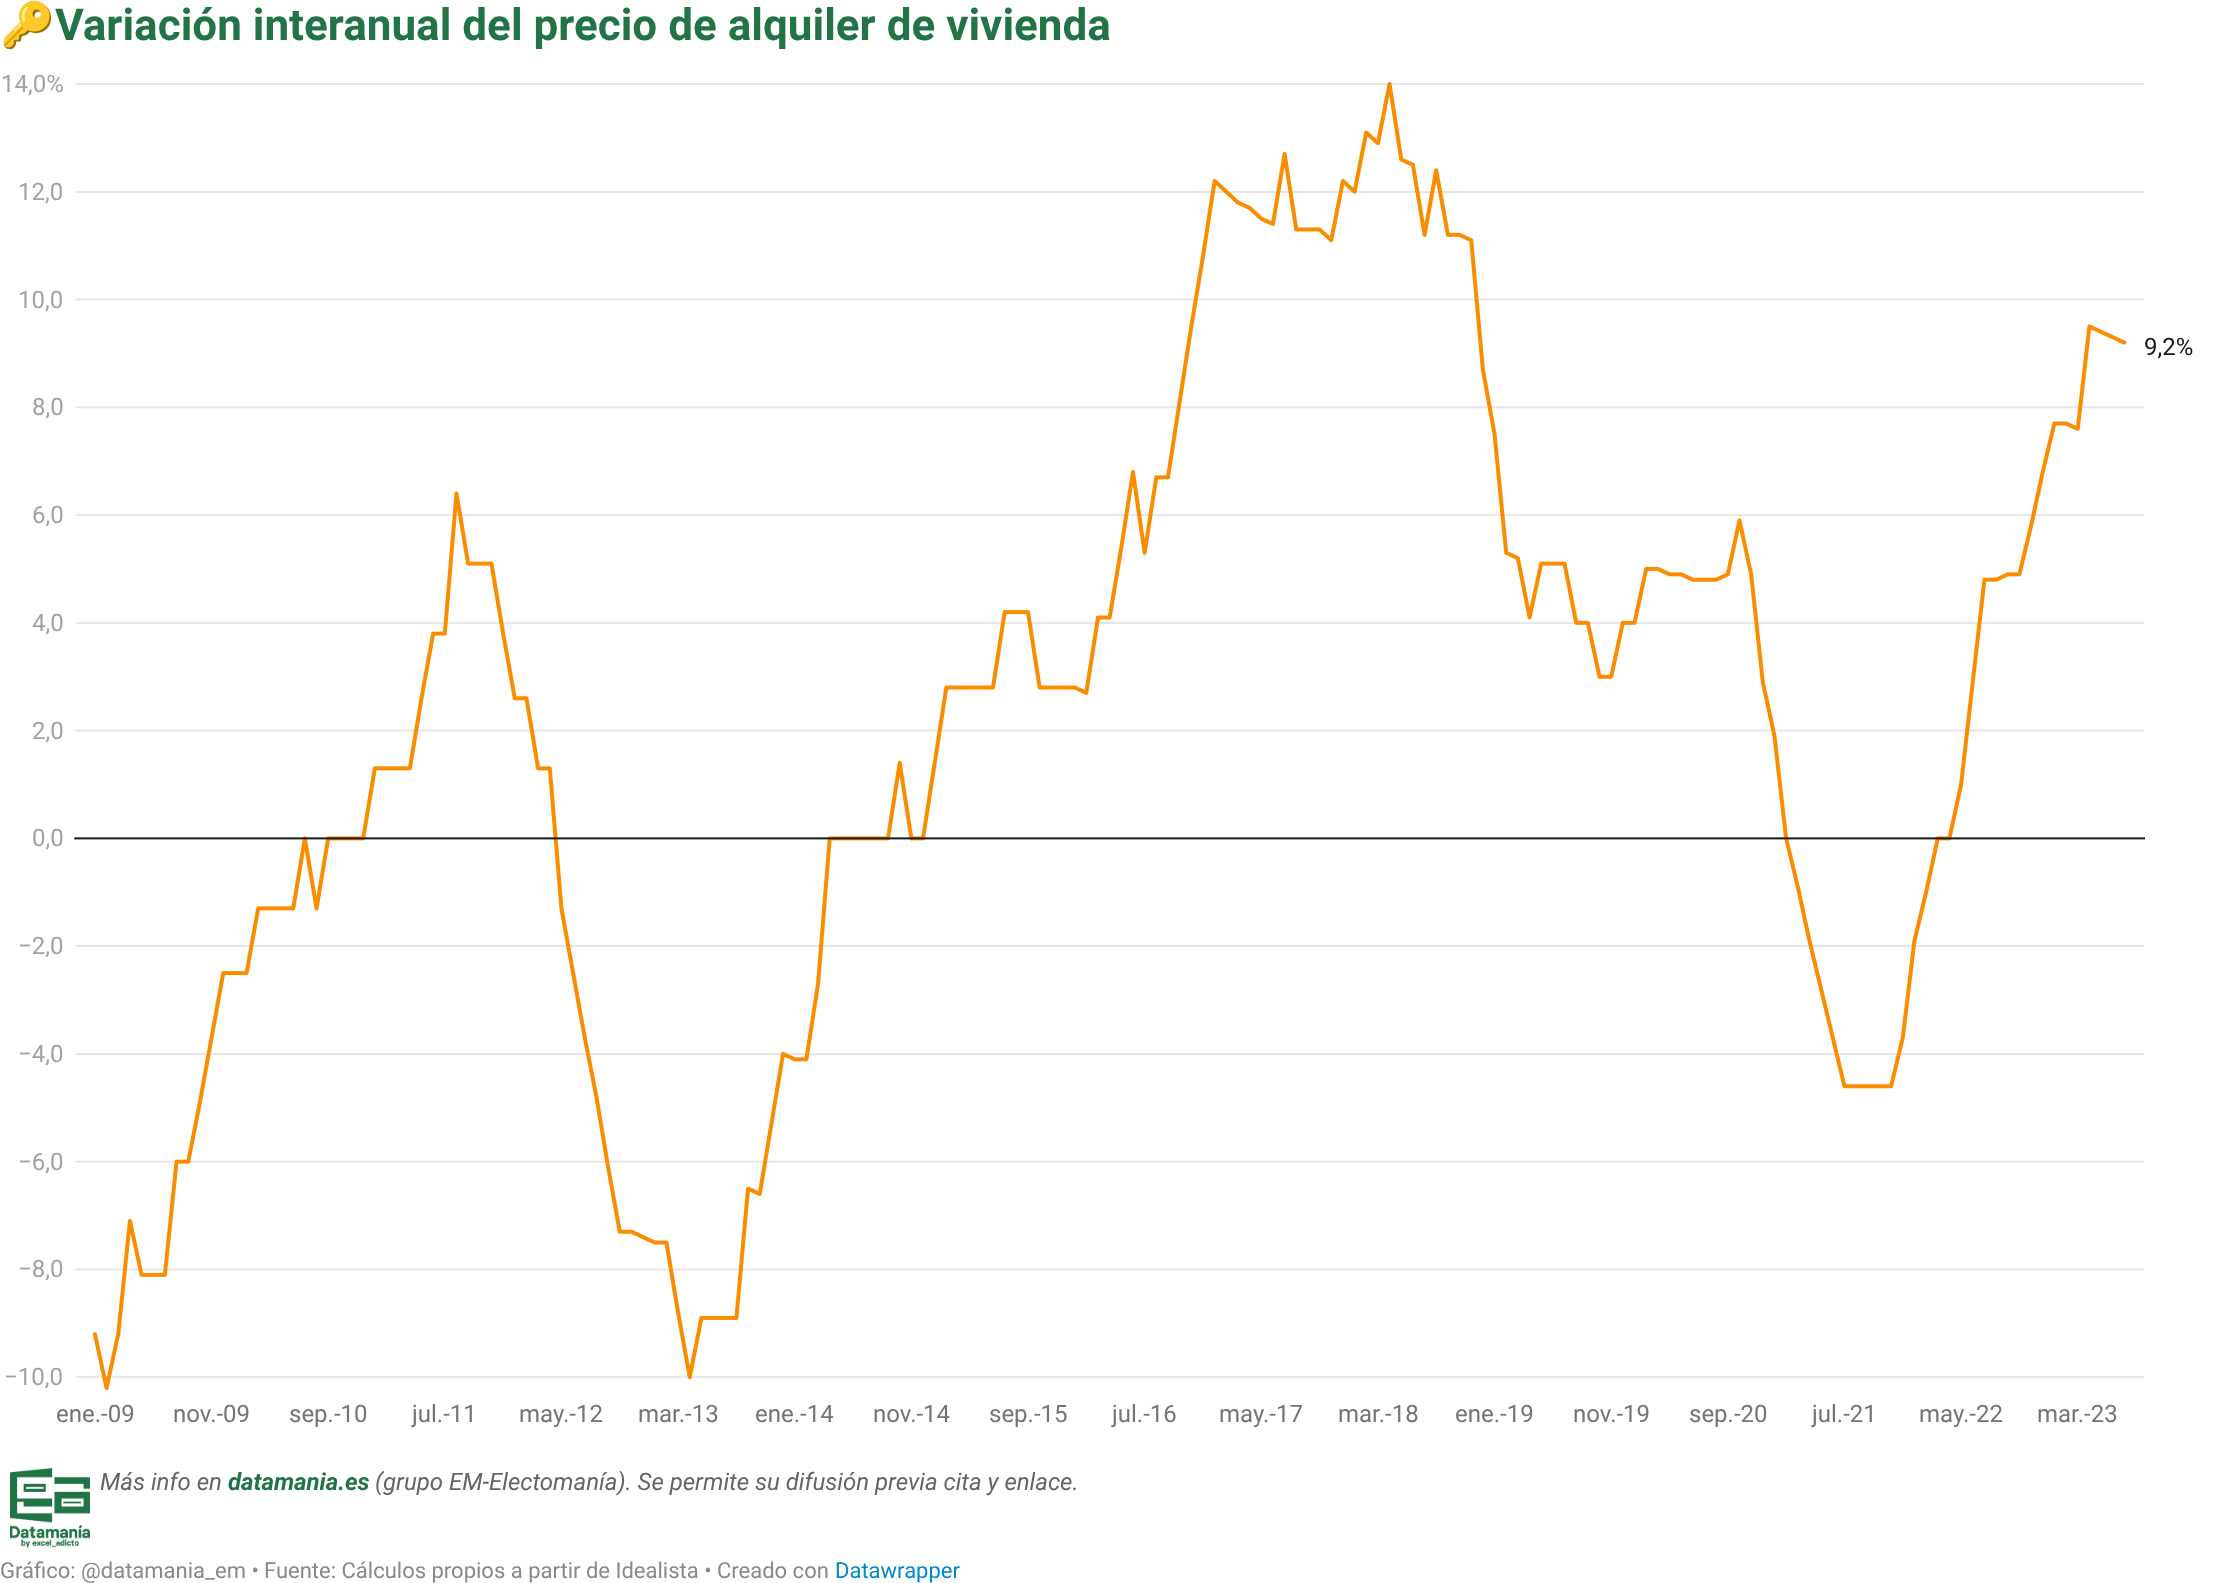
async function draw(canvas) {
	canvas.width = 2214;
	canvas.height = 1583;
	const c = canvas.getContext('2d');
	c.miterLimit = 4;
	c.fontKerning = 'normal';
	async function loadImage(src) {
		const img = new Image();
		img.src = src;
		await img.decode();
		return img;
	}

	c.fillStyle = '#fff';
	c.fillRect(0, 0, 2214, 1583);
	c.font = 'bold 44px Noto Color Emoji';
	c.fillStyle = '#227346';
	c.fillText('🔑', 0, 40);
	c.font = 'bold 44px Roboto';
	c.fillText('Variación interanual del precio de alquiler de vivienda', 55, 40);
	c.drawImage(await loadImage('img1.png'), 74, 82, 2071, 1308);
	c.font = '24px Roboto';
	c.fillStyle = '#a2a2a2';
	for (const [text, x, y] of [
		['14,0%', 1, 92],
		['12,0', 18, 200],
		['10,0', 18, 308],
		['8,0', 32, 415],
		['6,0', 32, 523],
		['4,0', 32, 631],
		['2,0', 32, 739],
		['0,0', 32, 846],
		['−2,0', 18, 954],
		['−4,0', 18, 1062],
		['−6,0', 18, 1170],
		['−8,0', 18, 1277],
		['−10,0', 4, 1385],
	]) {
		c.fillText(text, x, y);
	}
	c.fillStyle = '#747474';
	for (const [text, x, y] of [
		['ene.-09', 56, 1422],
		['nov.-09', 173, 1422],
		['sep.-10', 289, 1422],
		['jul.-11', 412, 1422],
		['may.-12', 519, 1422],
		['mar.-13', 638, 1422],
		['ene.-14', 755, 1422],
		['nov.-14', 873, 1422],
		['sep.-15', 989, 1422],
		['jul.-16', 1112, 1422],
		['may.-17', 1219, 1422],
		['mar.-18', 1338, 1422],
		['ene.-19', 1455, 1422],
		['nov.-19', 1573, 1422],
		['sep.-20', 1689, 1422],
		['jul.-21', 1812, 1422],
		['may.-22', 1919, 1422],
		['mar.-23', 2037, 1422],
	]) {
		c.fillText(text, x, y);
	}
	c.fillStyle = '#181818';
	c.fillText('9,2%', 2144, 355);
	c.drawImage(await loadImage('img2.png'), 10, 1468, 80, 80);
	c.font = 'italic 24px Roboto';
	c.fillStyle = '#656565';
	c.fillText('Más info en', 100, 1490);
	c.font = 'italic bold 24px Roboto';
	c.fillStyle = '#227346';
	c.fillText('datamania.es', 228, 1490);
	c.font = 'italic 24px Roboto';
	c.fillStyle = '#656565';
	c.fillText('(grupo EM-Electomanía). Se permite su difusión previa cita y enlace.', 375, 1490);
	c.font = '22px Roboto';
	c.fillStyle = '#888';
	for (const [text, x, y] of [
		['Gráfico: @datamania_em •', 0, 1578],
		['Fuente: Cálculos propios a partir de Idealista •', 264, 1578],
		['Creado con', 717, 1578],
	]) {
		c.fillText(text, x, y);
	}
	c.fillStyle = '#08c';
	c.fillText('Datawrapper', 835, 1578);
}

draw(document.querySelector('canvas'));
